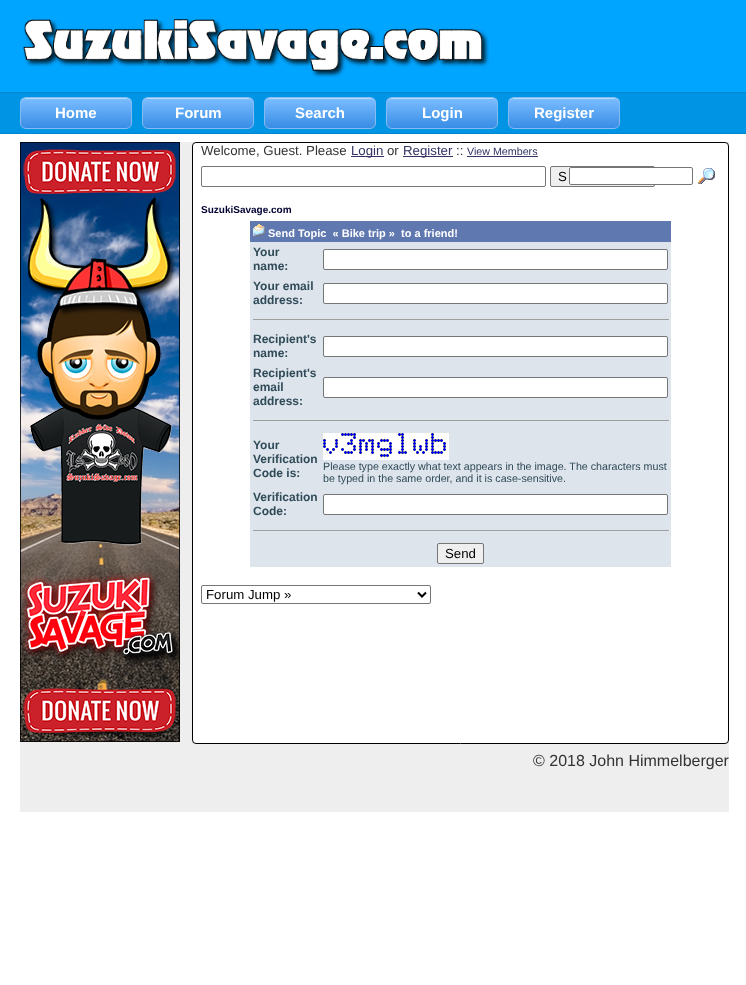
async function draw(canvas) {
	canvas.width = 746;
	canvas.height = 985;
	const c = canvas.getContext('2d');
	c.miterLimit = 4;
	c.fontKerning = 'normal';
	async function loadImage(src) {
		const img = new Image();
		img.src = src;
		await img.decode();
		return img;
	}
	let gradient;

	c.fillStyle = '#fff';
	c.fillRect(0, 0, 746, 985);
	c.fillStyle = '#00a5ff';
	c.fillRect(0, 0, 746, 92);
	c.drawImage(await loadImage('img1.png'), 23, 19, 466, 59);
	for (const [x, y, w, h, color] of [
		[0, 93, 746, 40, '#0094e5'],
		[0, 92, 746, 1, '#0084cc'],
		[0, 133, 746, 1, '#0084cc'],
	]) {
		c.fillStyle = color;
		c.fillRect(x, y, w, h);
	}
	c.save();
	c.beginPath();
	c.roundRect(20, 97, 112, 32, 6);
	c.clip();
	gradient = c.createLinearGradient(21, 98, 21, 128);
	gradient.addColorStop(0.05, '#79bbff');
	gradient.addColorStop(1, '#378de5');
	c.fillStyle = gradient;
	c.fillRect(20, 98, 112, 30);
	c.restore();
	c.fillStyle = '#bbdaf7';
	c.beginPath();
	c.moveTo(26, 99);
	c.lineTo(126, 99);
	c.bezierCurveTo(129, 99, 131, 101, 131, 104);
	c.bezierCurveTo(131, 94, 114, 98, 109, 98);
	c.lineTo(43, 98);
	c.bezierCurveTo(38, 98, 21, 94, 21, 104);
	c.bezierCurveTo(21, 101, 23, 99, 26, 99);
	c.closePath();
	c.fill();
	c.beginPath();
	c.roundRect(20.5, 97.5, 111, 31, 5.5);
	c.strokeStyle = '#84bbf3';
	c.stroke();
	c.font = 'bold 15px Liberation Sans';
	c.fillStyle = '#fff';
	c.fillText('Home', 55, 118);
	c.save();
	c.beginPath();
	c.roundRect(142, 97, 112, 32, 6);
	c.clip();
	gradient = c.createLinearGradient(143, 98, 143, 128);
	gradient.addColorStop(0.05, '#79bbff');
	gradient.addColorStop(1, '#378de5');
	c.fillStyle = gradient;
	c.fillRect(142, 98, 112, 30);
	c.restore();
	c.fillStyle = '#bbdaf7';
	c.beginPath();
	c.moveTo(148, 99);
	c.lineTo(248, 99);
	c.bezierCurveTo(251, 99, 253, 101, 253, 104);
	c.bezierCurveTo(253, 94, 236, 98, 231, 98);
	c.lineTo(165, 98);
	c.bezierCurveTo(160, 98, 143, 94, 143, 104);
	c.bezierCurveTo(143, 101, 145, 99, 148, 99);
	c.closePath();
	c.fill();
	c.beginPath();
	c.roundRect(142.5, 97.5, 111, 31, 5.5);
	c.stroke();
	c.fillStyle = '#fff';
	c.fillText('Forum', 175, 118);
	c.save();
	c.beginPath();
	c.roundRect(264, 97, 112, 32, 6);
	c.clip();
	gradient = c.createLinearGradient(265, 98, 265, 128);
	gradient.addColorStop(0.05, '#79bbff');
	gradient.addColorStop(1, '#378de5');
	c.fillStyle = gradient;
	c.fillRect(264, 98, 112, 30);
	c.restore();
	c.fillStyle = '#bbdaf7';
	c.beginPath();
	c.moveTo(270, 99);
	c.lineTo(370, 99);
	c.bezierCurveTo(373, 99, 375, 101, 375, 104);
	c.bezierCurveTo(375, 94, 358, 98, 353, 98);
	c.lineTo(287, 98);
	c.bezierCurveTo(282, 98, 265, 94, 265, 104);
	c.bezierCurveTo(265, 101, 267, 99, 270, 99);
	c.closePath();
	c.fill();
	c.beginPath();
	c.roundRect(264.5, 97.5, 111, 31, 5.5);
	c.stroke();
	c.fillStyle = '#fff';
	c.fillText('Search', 295, 118);
	c.save();
	c.beginPath();
	c.roundRect(386, 97, 112, 32, 6);
	c.clip();
	gradient = c.createLinearGradient(387, 98, 387, 128);
	gradient.addColorStop(0.05, '#79bbff');
	gradient.addColorStop(1, '#378de5');
	c.fillStyle = gradient;
	c.fillRect(386, 98, 112, 30);
	c.restore();
	c.fillStyle = '#bbdaf7';
	c.beginPath();
	c.moveTo(392, 99);
	c.lineTo(492, 99);
	c.bezierCurveTo(495, 99, 497, 101, 497, 104);
	c.bezierCurveTo(497, 94, 480, 98, 475, 98);
	c.lineTo(409, 98);
	c.bezierCurveTo(404, 98, 387, 94, 387, 104);
	c.bezierCurveTo(387, 101, 389, 99, 392, 99);
	c.closePath();
	c.fill();
	c.beginPath();
	c.roundRect(386.5, 97.5, 111, 31, 5.5);
	c.stroke();
	c.fillStyle = '#fff';
	c.fillText('Login', 422, 118);
	c.save();
	c.beginPath();
	c.roundRect(508, 97, 112, 32, 6);
	c.clip();
	gradient = c.createLinearGradient(509, 98, 509, 128);
	gradient.addColorStop(0.05, '#79bbff');
	gradient.addColorStop(1, '#378de5');
	c.fillStyle = gradient;
	c.fillRect(508, 98, 112, 30);
	c.restore();
	c.fillStyle = '#bbdaf7';
	c.beginPath();
	c.moveTo(514, 99);
	c.lineTo(614, 99);
	c.bezierCurveTo(617, 99, 619, 101, 619, 104);
	c.bezierCurveTo(619, 94, 602, 98, 597, 98);
	c.lineTo(531, 98);
	c.bezierCurveTo(526, 98, 509, 94, 509, 104);
	c.bezierCurveTo(509, 101, 511, 99, 514, 99);
	c.closePath();
	c.fill();
	c.beginPath();
	c.roundRect(508.5, 97.5, 111, 31, 5.5);
	c.stroke();
	c.fillStyle = '#fff';
	c.fillText('Register', 534, 118);
	c.fillStyle = '#eee';
	c.fillRect(20, 142, 709, 670);
	c.drawImage(await loadImage('img2.png'), 20, 142, 160, 600);
	c.fillStyle = '#fff';
	c.beginPath();
	c.roundRect(192.5, 142.5, 536, 601, 3.5);
	c.fill();
	c.strokeStyle = '#000';
	c.stroke();
	c.font = '13.25px Liberation Sans';
	c.fillStyle = '#333';
	c.fillText('Welcome, Guest. Please', 201, 155);
	c.fillStyle = '#336';
	c.fillRect(351, 156, 33, 1);
	c.fillText('Login', 351, 155);
	c.fillStyle = '#333';
	c.fillText('or', 387, 155);
	c.fillStyle = '#336';
	c.fillRect(403, 156, 50, 1);
	c.fillText('Register', 403, 155);
	c.fillStyle = '#333';
	c.fillText('::', 456, 155);
	c.font = '10.7px Liberation Sans';
	c.fillStyle = '#336';
	c.fillText('View Members', 467, 155);
	c.fillRect(467, 156, 71, 1);
	c.beginPath();
	c.roundRect(201.5, 166.5, 344, 20, 1.5);
	c.strokeStyle = '#767676';
	c.stroke();
	c.fillStyle = '#efefef';
	c.beginPath();
	c.roundRect(550.5, 166.5, 104, 20, 1.5);
	c.fill();
	c.stroke();
	c.font = '13.25px Liberation Sans';
	c.fillStyle = '#000';
	c.fillText('S', 558, 181);
	c.fillStyle = '#fff';
	c.beginPath();
	c.roundRect(569.5, 167.5, 123, 17, 1.5);
	c.fill();
	c.stroke();
	c.drawImage(await loadImage('img3.png'), 698, 168, 17, 16);
	c.font = 'bold 10px Liberation Sans';
	c.fillStyle = '#003';
	c.fillText('SuzukiSavage.com', 201, 213);
	c.fillStyle = '#6078b0';
	c.fillRect(250, 221, 421, 21);
	c.drawImage(await loadImage('img4.png'), 253, 224, 12, 13);
	c.font = 'bold 11px Liberation Sans';
	c.fillStyle = '#fff';
	c.fillText('Send Topic  « Bike trip »  to a friend!', 268, 237);
	c.fillStyle = '#dee4ec';
	c.fillRect(250, 242, 421, 34);
	c.font = 'bold 12px Liberation Sans';
	c.fillStyle = '#304b58';
	c.fillText('Your', 253, 256);
	c.fillText('name:', 253, 270);
	c.fillStyle = '#fff';
	c.beginPath();
	c.roundRect(323.5, 249.5, 344, 20, 1.5);
	c.fill();
	c.stroke();
	c.fillStyle = '#dee4ec';
	c.fillRect(250, 276, 421, 53);
	c.fillStyle = '#304b58';
	c.fillText('Your email', 253, 290);
	c.fillText('address:', 253, 304);
	c.fillStyle = '#fff';
	c.beginPath();
	c.roundRect(323.5, 283.5, 344, 20, 1.5);
	c.fill();
	c.stroke();
	for (const [x, y, w, h, color] of [
		[253, 319, 417, 1, '#9f9f9f'],
		[669, 319, 1, 1, '#eee'],
		[250, 329, 421, 34, '#dee4ec'],
	]) {
		c.fillStyle = color;
		c.fillRect(x, y, w, h);
	}
	c.fillStyle = '#304b58';
	c.fillText('Recipient\'s', 253, 343);
	c.fillText('name:', 253, 357);
	c.fillStyle = '#fff';
	c.beginPath();
	c.roundRect(323.5, 336.5, 344, 20, 1.5);
	c.fill();
	c.stroke();
	c.fillStyle = '#dee4ec';
	c.fillRect(250, 363, 421, 67);
	c.fillStyle = '#304b58';
	for (const [text, x, y] of [
		['Recipient\'s', 253, 377],
		['email', 253, 391],
		['address:', 253, 405],
	]) {
		c.fillText(text, x, y);
	}
	c.fillStyle = '#fff';
	c.beginPath();
	c.roundRect(323.5, 377.5, 344, 20, 1.5);
	c.fill();
	c.stroke();
	for (const [x, y, w, h, color] of [
		[253, 420, 417, 1, '#9f9f9f'],
		[669, 420, 1, 1, '#eee'],
		[250, 430, 421, 57, '#dee4ec'],
	]) {
		c.fillStyle = color;
		c.fillRect(x, y, w, h);
	}
	c.fillStyle = '#304b58';
	for (const [text, x, y] of [
		['Your', 253, 449],
		['Verification', 253, 463],
		['Code is:', 253, 477],
	]) {
		c.fillText(text, x, y);
	}
	c.drawImage(await loadImage('img5.png'), 323, 433, 126, 27);
	c.font = '10.7px Liberation Sans';
	c.fillText('Please type exactly what text appears in the image. The characters must', 323, 470);
	c.fillText('be typed in the same order, and it is case-sensitive.', 323, 482);
	c.fillStyle = '#dee4ec';
	c.fillRect(250, 487, 421, 80);
	c.font = 'bold 12px Liberation Sans';
	c.fillStyle = '#304b58';
	c.fillText('Verification', 253, 501);
	c.fillText('Code:', 253, 515);
	c.fillStyle = '#fff';
	c.beginPath();
	c.roundRect(323.5, 494.5, 344, 20, 1.5);
	c.fill();
	c.stroke();
	c.fillStyle = '#9f9f9f';
	c.fillRect(253, 530, 417, 1);
	c.fillStyle = '#eee';
	c.fillRect(669, 530, 1, 1);
	c.fillStyle = '#efefef';
	c.beginPath();
	c.roundRect(437.5, 543.5, 46, 20, 1.5);
	c.fill();
	c.stroke();
	c.font = '13.25px Liberation Sans';
	c.fillStyle = '#000';
	c.fillText('Send', 445, 558);
	c.beginPath();
	c.roundRect(201.5, 585.5, 229, 18, 1.5);
	c.stroke();
	c.beginPath();
	c.moveTo(418, 592.5);
	c.lineTo(422, 596.5);
	c.lineTo(426, 592.5);
	c.strokeStyle = '#000';
	c.lineWidth = 2;
	c.stroke();
	c.fillText('Forum Jump »', 206, 599);
	c.font = '16px Liberation Sans';
	c.fillStyle = '#333';
	c.fillText('© 2018 John Himmelberger', 533, 766);
}

draw(document.querySelector('canvas'));
